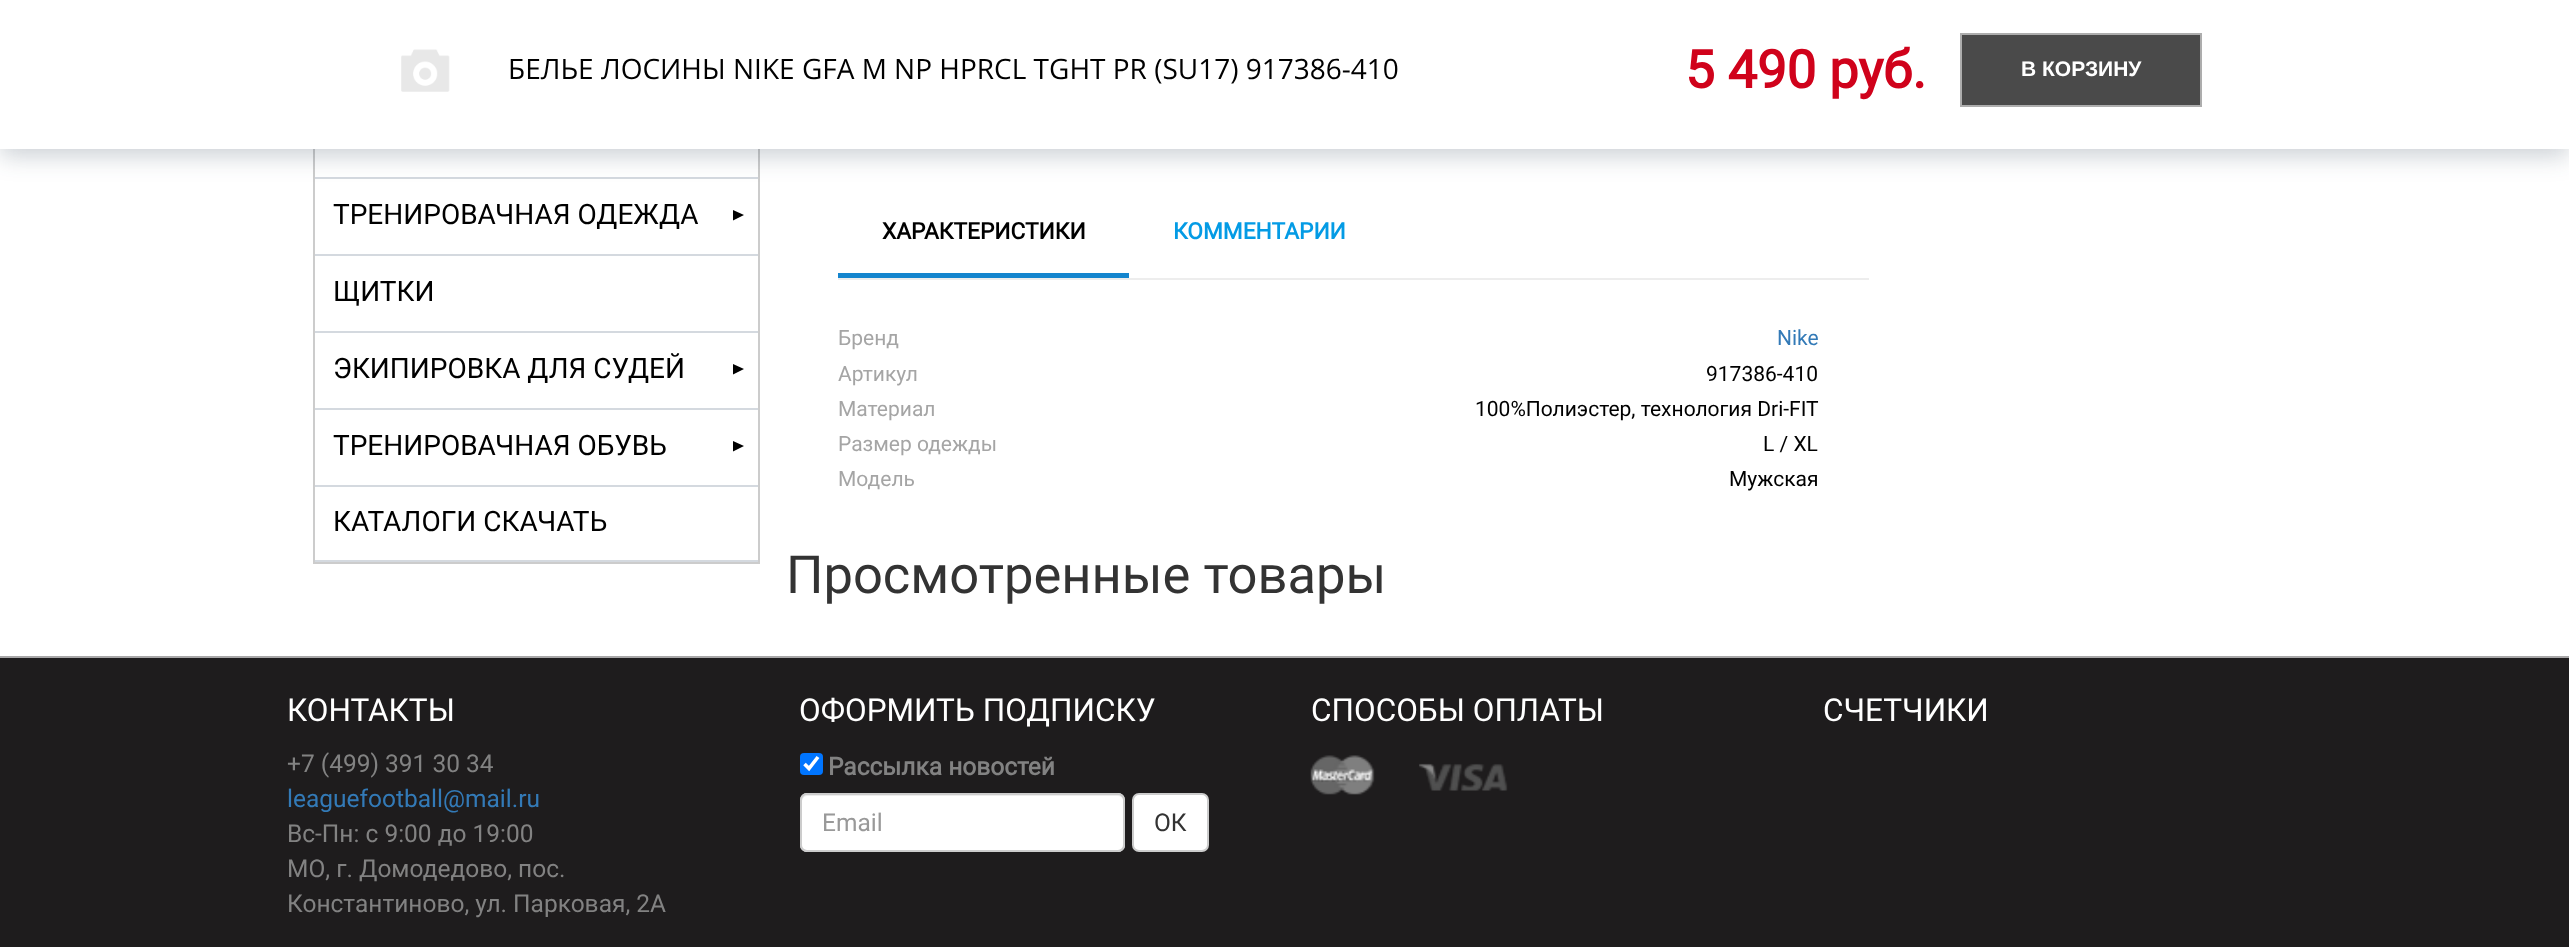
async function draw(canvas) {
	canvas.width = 2569;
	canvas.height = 947;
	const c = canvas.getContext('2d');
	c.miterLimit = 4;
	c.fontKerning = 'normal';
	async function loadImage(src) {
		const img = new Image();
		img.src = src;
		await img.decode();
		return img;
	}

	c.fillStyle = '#fff';
	c.fillRect(0, 0, 2569, 947);
	c.strokeStyle = '#ccc';
	c.lineWidth = 2;
	c.strokeRect(314, -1, 445, 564);
	c.fillStyle = '#d4d9df';
	c.fillRect(315, 177, 443, 2);
	c.fillStyle = '#20364a3b';
	c.filter = 'blur(12px)';
	c.beginPath();
	c.rect(0, 7, 2569, 149);
	c.fill();
	c.filter = 'none';
	c.fillStyle = '#fff';
	c.fillRect(0, 0, 2569, 149);
	c.drawImage(await loadImage('img1.png'), 401, 49, 49, 43);
	c.font = '28px Open Sans';
	c.fillStyle = '#000';
	c.fillText('БЕЛЬЕ ЛОСИНЫ NIKE GFA M NP HPRCL TGHT PR (SU17) 917386-410', 508, 79);
	c.font = 'bold 52.5px Roboto';
	c.fillStyle = '#d0021b';
	c.fillText('5 490 руб.', 1685, 88);
	c.fillStyle = '#4a4a4a';
	c.beginPath();
	c.rect(1961, 34, 240, 72);
	c.fill();
	c.strokeStyle = '#adadad';
	c.stroke();
	c.font = 'bold 21px Liberation Sans';
	c.fillStyle = '#fff';
	c.fillText('В КОРЗИНУ', 2021, 76);
	c.fillStyle = '#ededed';
	c.fillRect(838, 278, 1031, 2);
	c.font = 'bold 22.75px Roboto';
	c.fillStyle = '#000';
	c.fillText('ХАРАКТЕРИСТИКИ', 882, 239);
	c.fillStyle = '#1485ce';
	c.fillRect(838, 273, 291, 5);
	c.fillStyle = '#039be5';
	c.fillText('КОММЕНТАРИИ', 1173, 239);
	c.font = '21px Roboto';
	c.fillStyle = '#a5a5a5';
	c.fillText('Бренд', 838, 345);
	c.fillStyle = '#337ab7';
	c.fillText('Nike', 1777, 345);
	c.fillStyle = '#a5a5a5';
	c.fillText('Артикул', 838, 381);
	c.fillStyle = '#000';
	c.fillText('917386-410', 1706, 381);
	c.fillStyle = '#a5a5a5';
	c.fillText('Материал', 838, 416);
	c.fillStyle = '#000';
	c.fillText('100%Полиэстер, технология Dri-FIT', 1475, 416);
	c.fillStyle = '#a5a5a5';
	c.fillText('Размер одежды', 838, 451);
	c.fillStyle = '#000';
	c.fillText('L / XL', 1763, 451);
	c.fillStyle = '#a5a5a5';
	c.fillText('Модель', 838, 486);
	c.fillStyle = '#000';
	c.fillText('Мужская', 1729, 486);
	c.fillStyle = '#d4d9df';
	c.fillRect(315, 254, 443, 2);
	c.font = '28px Roboto';
	c.fillStyle = '#000';
	c.fillText('ТРЕНИРОВАЧНАЯ ОДЕЖДА', 333, 224);
	c.beginPath();
	c.moveTo(733, 220.5);
	c.lineTo(733, 210);
	c.lineTo(744, 215);
	c.closePath();
	c.fill();
	c.fillStyle = '#d4d9df';
	c.fillRect(315, 331, 443, 2);
	c.fillStyle = '#000';
	c.fillText('ЩИТКИ', 333, 301);
	c.fillStyle = '#d4d9df';
	c.fillRect(315, 408, 443, 2);
	c.fillStyle = '#000';
	c.fillText('ЭКИПИРОВКА ДЛЯ СУДЕЙ', 333, 378);
	c.beginPath();
	c.moveTo(733, 374.5);
	c.lineTo(733, 364);
	c.lineTo(744, 369);
	c.closePath();
	c.fill();
	c.fillStyle = '#d4d9df';
	c.fillRect(315, 485, 443, 2);
	c.fillStyle = '#000';
	c.fillText('ТРЕНИРОВАЧНАЯ ОБУВЬ', 333, 455);
	c.beginPath();
	c.moveTo(733, 451.5);
	c.lineTo(733, 441);
	c.lineTo(744, 446);
	c.closePath();
	c.fill();
	c.fillStyle = '#d4d9df';
	c.fillRect(315, 560, 443, 2);
	c.fillStyle = '#000';
	c.fillText('КАТАЛОГИ СКАЧАТЬ', 333, 531);
	c.font = '52.5px Roboto';
	c.fillStyle = '#333';
	c.fillText('Просмотренные товары', 786, 593);
	c.fillStyle = '#1e1c1d';
	c.fillRect(0, 658, 2569, 289);
	c.fillStyle = '#a8a7a8';
	c.fillRect(0, 656, 2569, 2);
	c.font = '31.5px Roboto';
	c.fillStyle = '#fff';
	c.fillText('КОНТАКТЫ', 287, 721);
	c.font = '24.5px Roboto';
	c.fillStyle = '#828282';
	c.fillText('+7 (499) 391 30 34', 287, 772);
	c.fillStyle = '#337ab7';
	c.fillText('leaguefootball@mail.ru', 287, 807);
	c.fillStyle = '#828282';
	for (const [text, x, y] of [
		['Вс-Пн: с 9:00 до 19:00', 287, 842],
		['МО, г. Домодедово, пос.', 287, 877],
		['Константиново, ул. Парковая, 2А', 287, 912],
	]) {
		c.fillText(text, x, y);
	}
	c.font = '31.5px Roboto';
	c.fillStyle = '#fff';
	c.fillText('ОФОРМИТЬ ПОДПИСКУ', 799, 721);
	c.fillStyle = '#0075ff';
	c.beginPath();
	c.roundRect(800, 753, 23, 22, 4);
	c.fill();
	c.beginPath();
	c.moveTo(804.5, 764);
	c.lineTo(809, 768.5);
	c.lineTo(818, 757);
	c.strokeStyle = '#fff';
	c.lineWidth = 3.6;
	c.stroke();
	c.font = 'bold 24.5px Roboto';
	c.fillStyle = '#828282';
	c.fillText('Рассылка новостей', 828, 775);
	c.fillStyle = '#fff';
	c.beginPath();
	c.roundRect(800, 793, 325, 59, 7);
	c.fill();
	c.fillStyle = '#ececec';
	c.beginPath();
	c.moveTo(807, 796);
	c.lineTo(1118, 796);
	c.bezierCurveTo(1121, 796, 1124, 799, 1124, 802);
	c.lineTo(1124, 800);
	c.bezierCurveTo(1124, 797, 1122, 795, 1119, 795);
	c.lineTo(807, 795);
	c.bezierCurveTo(804, 795, 802, 797, 802, 800);
	c.lineTo(802, 802);
	c.bezierCurveTo(802, 799, 804, 796, 807, 796);
	c.closePath();
	c.fill();
	c.beginPath();
	c.roundRect(801, 794, 323, 57, 6);
	c.strokeStyle = '#ccc';
	c.lineWidth = 2;
	c.stroke();
	c.font = '24.5px Roboto';
	c.fillStyle = '#999';
	c.fillText('Email', 822, 831);
	c.fillStyle = '#fff';
	c.beginPath();
	c.roundRect(1133, 794, 75, 57, 6);
	c.fill();
	c.stroke();
	c.fillStyle = '#333';
	c.fillText('ОК', 1154, 831);
	c.font = '31.5px Roboto';
	c.fillStyle = '#fff';
	c.fillText('СПОСОБЫ ОПЛАТЫ', 1311, 721);
	c.drawImage(await loadImage('img2.png'), 1310, 755, 65, 40);
	c.drawImage(await loadImage('img3.png'), 1419, 763, 89, 28);
	c.fillText('СЧЕТЧИКИ', 1823, 721);
}

draw(document.querySelector('canvas'));
